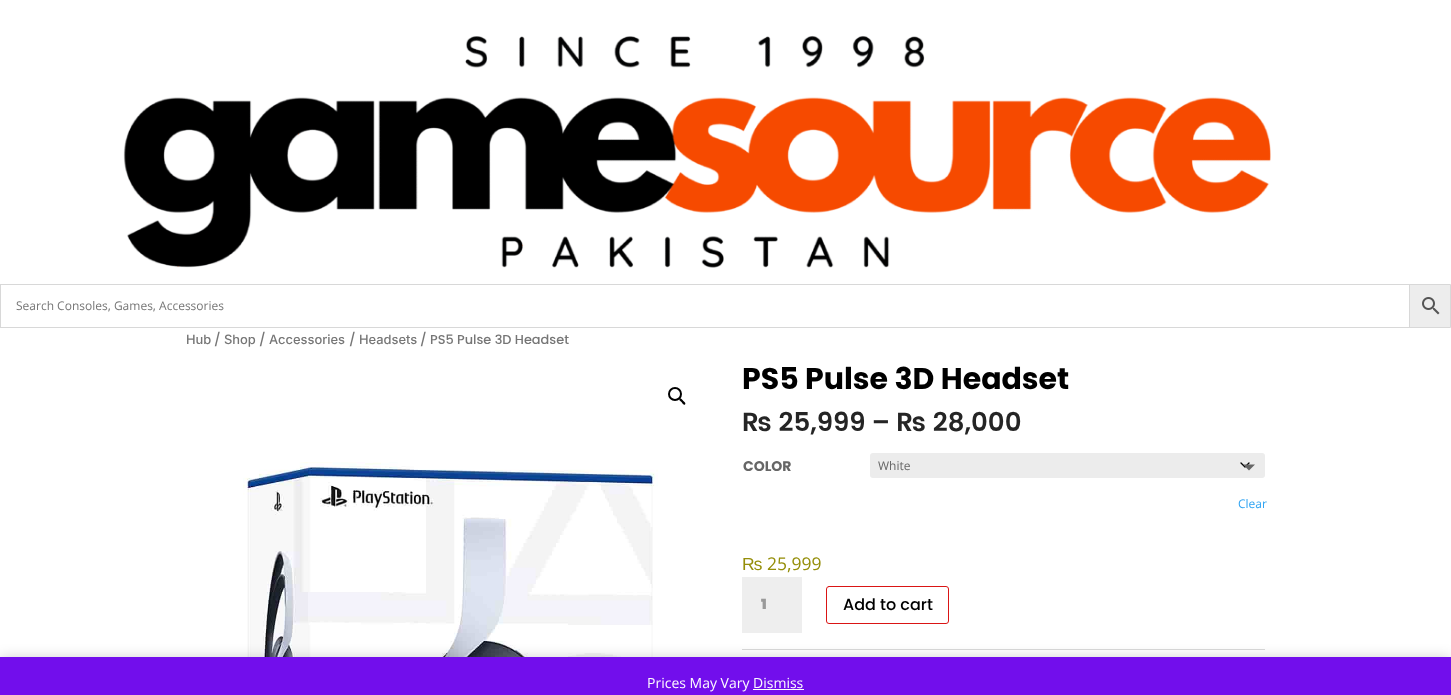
async function draw(canvas) {
	canvas.width = 1451;
	canvas.height = 695;
	const c = canvas.getContext('2d');
	c.miterLimit = 4;
	c.fontKerning = 'normal';
	async function loadImage(src) {
		const img = new Image();
		img.src = src;
		await img.decode();
		return img;
	}

	c.fillStyle = '#fff';
	c.fillRect(0, 0, 1451, 695);
	c.drawImage(await loadImage('img1.png'), 123, 35, 1148, 233);
	c.fillStyle = '#ededed';
	c.beginPath();
	c.rect(1409.5, 284.5, 41, 43);
	c.fill();
	c.strokeStyle = '#d8d8d8';
	c.stroke();
	c.strokeRect(0.5, 284.5, 1409, 43);
	c.font = '12px Open Sans';
	c.fillStyle = '#767676';
	c.fillText('Search Consoles, Games, Accessories', 16, 310);
	c.drawImage(await loadImage('img2.png'), 1422, 297, 18, 18);
	c.font = '500 12.9px Inter';
	c.fillText('Hub', 186, 344);
	c.font = '500 12.9px Poppins';
	c.fillText('/', 214, 344);
	c.font = '500 12.9px Inter';
	c.fillText('Shop', 224, 344);
	c.font = '500 12.9px Poppins';
	c.fillText('/', 259, 344);
	c.font = '500 12.9px Inter';
	c.fillText('Accessories', 269, 344);
	c.font = '500 12.9px Poppins';
	c.fillText('/', 349, 344);
	c.font = '500 12.9px Inter';
	c.fillText('Headsets', 359, 344);
	c.font = '500 12.9px Poppins';
	c.fillText('/ PS5 Pulse 3D Headset', 420, 344);
	c.beginPath();
	c.arc(675, 394, 6, 0, 2 * Math.PI);
	c.strokeStyle = '#000';
	c.lineWidth = 2;
	c.stroke();
	c.fillStyle = '#000';
	c.beginPath();
	c.moveTo(679.5, 398.5);
	c.bezierCurveTo(680.5, 397.5, 682.5, 400, 683, 400.5);
	c.bezierCurveTo(683.5, 401.5, 686.5, 403, 685, 404.5);
	c.bezierCurveTo(684, 405.5, 682, 403, 681.5, 402);
	c.bezierCurveTo(681, 401.5, 678.5, 400, 679.5, 398.5);
	c.closePath();
	c.fill();
	c.drawImage(await loadImage('img3.png'), 243, 462, 415, 195);
	c.font = 'bold 30px Poppins';
	c.fillText('PS5 Pulse 3D Headset', 742, 389);
	c.font = '600 26px Poppins';
	c.fillStyle = '#252525';
	c.fillText('₨ 25,999 – ₨ 28,000', 742, 431);
	c.font = 'bold 14px Poppins';
	c.fillStyle = '#666';
	c.fillText('COLOR', 743, 471);
	c.fillStyle = '#ececec';
	c.beginPath();
	c.roundRect(870, 453, 395, 25, 3);
	c.fill();
	c.beginPath();
	c.moveTo(1241, 463);
	c.lineTo(1245, 467);
	c.lineTo(1249, 463);
	c.lineWidth = 1.3;
	c.lineCap = 'round';
	c.lineJoin = 'round';
	c.stroke();
	c.font = '12px Open Sans';
	c.fillStyle = '#666';
	c.fillText('White', 878, 470);
	c.beginPath();
	c.moveTo(1243, 464.5);
	c.lineTo(1255, 464.5);
	c.lineTo(1249, 470.5);
	c.closePath();
	c.fill();
	c.fillStyle = '#2ea3f2';
	c.fillText('Clear', 1238, 508);
	c.font = '17.5px Liberation Sans';
	c.fillStyle = '#958e09';
	c.fillText('₨', 742, 570);
	c.font = '17.5px Open Sans';
	c.fillText('25,999', 767, 570);
	c.fillStyle = '#eee';
	c.fillRect(742, 577, 60, 56);
	c.font = '900 14px Poppins';
	c.fillStyle = '#999';
	c.fillText('1', 761, 609);
	c.beginPath();
	c.roundRect(826.5, 586.5, 122, 37, 2.5);
	c.strokeStyle = '#da1515';
	c.lineWidth = 1;
	c.lineJoin = 'miter';
	c.stroke();
	c.font = '500 16px Poppins';
	c.fillStyle = '#000';
	c.fillText('Add to cart', 843, 610);
	c.fillStyle = '#dadada';
	c.fillRect(742, 649, 523, 1);
	c.fillStyle = '#00000033';
	c.filter = 'blur(7px)';
	c.beginPath();
	c.rect(0, 658, 1451, 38);
	c.fill();
	c.filter = 'none';
	c.fillStyle = '#720eec';
	c.fillRect(0, 657, 1451, 38);
	c.font = '14px Open Sans';
	c.fillStyle = '#fcfbfe';
	c.fillText('Prices May Vary Dismiss', 647, 688);
	c.fillRect(753, 689, 51, 1);
}

draw(document.querySelector('canvas'));
